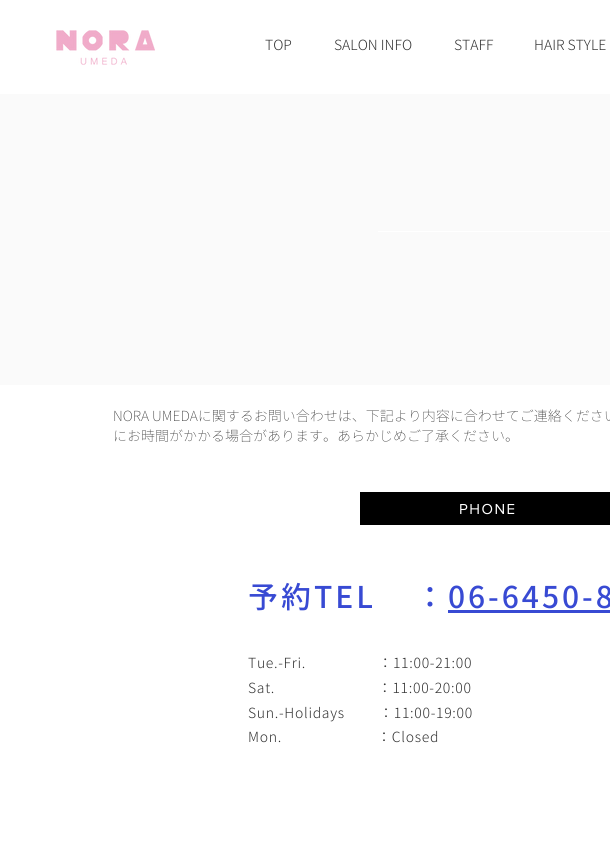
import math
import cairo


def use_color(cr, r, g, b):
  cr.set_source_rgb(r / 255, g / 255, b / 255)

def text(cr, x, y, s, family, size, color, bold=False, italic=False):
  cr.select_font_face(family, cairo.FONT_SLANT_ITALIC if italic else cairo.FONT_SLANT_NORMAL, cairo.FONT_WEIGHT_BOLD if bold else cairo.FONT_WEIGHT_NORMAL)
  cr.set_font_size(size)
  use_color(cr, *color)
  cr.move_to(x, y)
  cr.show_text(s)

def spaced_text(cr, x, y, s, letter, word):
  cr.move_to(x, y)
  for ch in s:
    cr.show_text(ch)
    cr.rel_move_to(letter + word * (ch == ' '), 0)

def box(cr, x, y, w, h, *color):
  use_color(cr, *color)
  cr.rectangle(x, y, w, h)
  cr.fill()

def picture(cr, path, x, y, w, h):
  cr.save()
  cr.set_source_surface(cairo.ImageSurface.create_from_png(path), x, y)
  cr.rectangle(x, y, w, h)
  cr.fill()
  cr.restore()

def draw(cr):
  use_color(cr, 255, 255, 255)
  cr.paint()
  picture(cr, "img_01.png", 56, 30, 99, 35)
  box(cr, 0, 94, 610, 291, 250, 250, 250)
  box(cr, 378, 231, 232, 1, 255, 255, 255)
  box(cr, 360, 492, 250, 33, 0, 0, 0)
  box(cr, 448, 610, 162, 3, 56, 74, 211)
  text(cr, 265, 50, "TOP", "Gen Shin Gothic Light", 14, (51, 51, 51))
  text(cr, 334, 50, "SALON INFO", "Gen Shin Gothic Light", 14, (51, 51, 51))
  text(cr, 454, 50, "STAFF", "Gen Shin Gothic Light", 14, (51, 51, 51))
  text(cr, 534, 50, "HAIR STYLE", "Gen Shin Gothic Light", 14, (51, 51, 51))
  text(cr, 113, 421, "NORA UMEDAに関するお問い合わせは、下記より内容に合わせてご連絡ください", "Gen Shin Gothic ExtraLight", 14, (51, 51, 51))
  text(cr, 113, 441, "にお時間がかかる場合があります。あらかじめご了承ください。", "Gen Shin Gothic ExtraLight", 14, (51, 51, 51))
  cr.select_font_face("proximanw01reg")
  cr.set_font_size(15)
  use_color(cr, 255, 255, 255)
  spaced_text(cr, 459, 514, "PHONE", 1.5, 0)
  cr.select_font_face("Gen Shin Gothic Medium")
  cr.set_font_size(30)
  use_color(cr, 56, 74, 211)
  spaced_text(cr, 248, 608, "予約TEL    ：06-6450-8", 3, 0)
  cr.select_font_face("Gen Shin Gothic Light")
  cr.set_font_size(14)
  use_color(cr, 51, 51, 51)
  spaced_text(cr, 248, 668, "Tue.-Fri.                   ：11:00-21:00", 0.7, 0)
  spaced_text(cr, 248, 693, "Sat.                           ：11:00-20:00", 0.7, 0)
  spaced_text(cr, 248, 718, "Sun.-Holidays         ：11:00-19:00", 0.7, 0)
  spaced_text(cr, 248, 742, "Mon.                         ：Closed", 0.7, 0)


surface = cairo.ImageSurface(cairo.FORMAT_RGB24, 610, 867)
cr = cairo.Context(surface)
options = cairo.FontOptions()
options.set_hint_metrics(cairo.HINT_METRICS_OFF)
options.set_hint_style(cairo.HINT_STYLE_NONE)
cr.set_font_options(options)
cr.set_miter_limit(4)
draw(cr)
surface.write_to_png("out.png")
